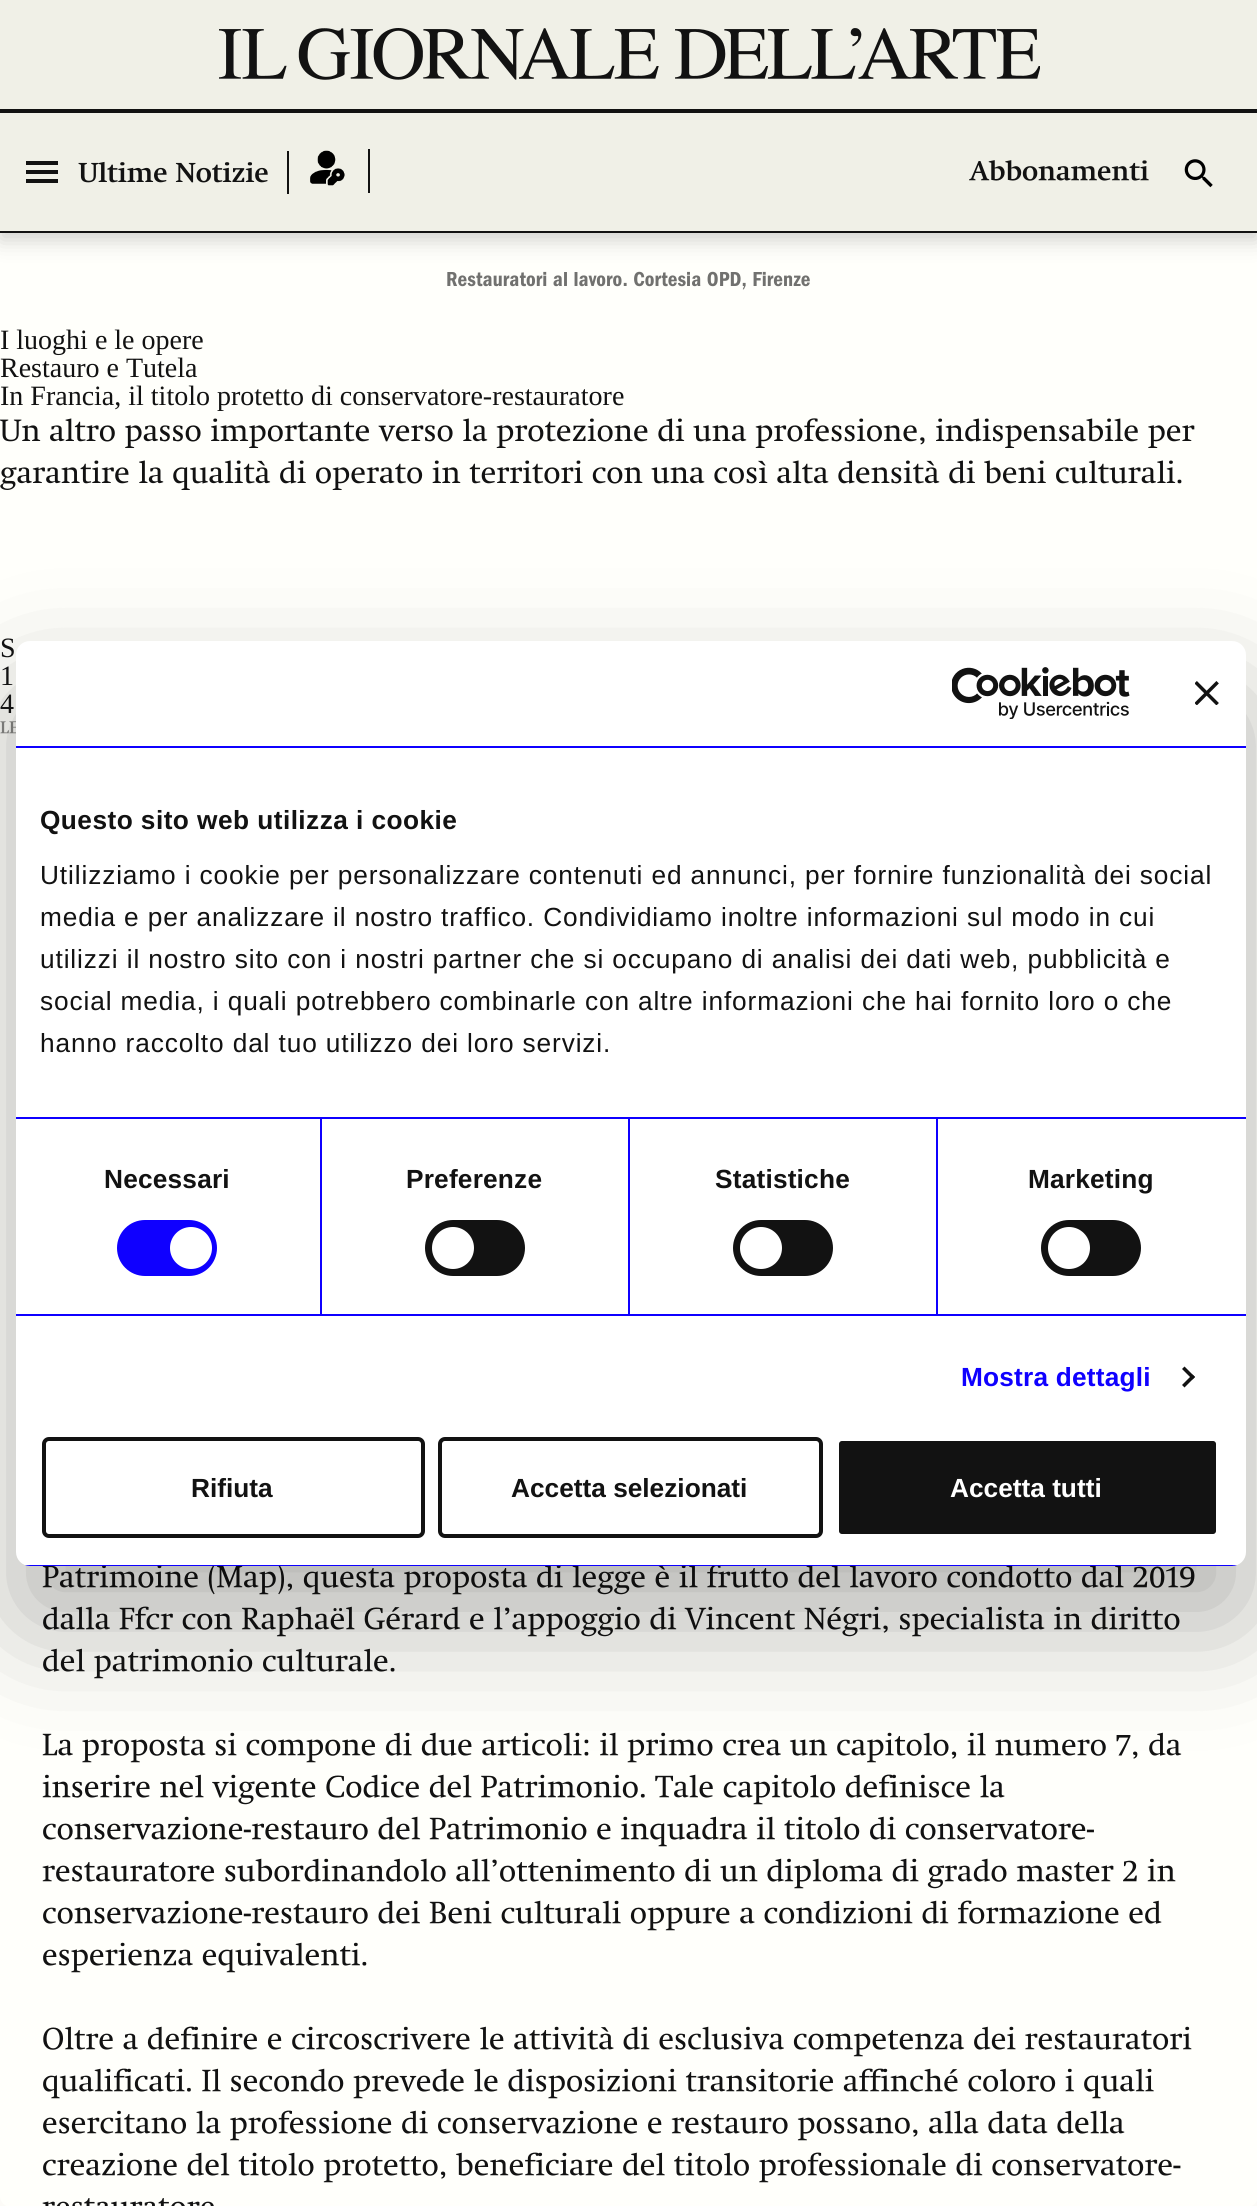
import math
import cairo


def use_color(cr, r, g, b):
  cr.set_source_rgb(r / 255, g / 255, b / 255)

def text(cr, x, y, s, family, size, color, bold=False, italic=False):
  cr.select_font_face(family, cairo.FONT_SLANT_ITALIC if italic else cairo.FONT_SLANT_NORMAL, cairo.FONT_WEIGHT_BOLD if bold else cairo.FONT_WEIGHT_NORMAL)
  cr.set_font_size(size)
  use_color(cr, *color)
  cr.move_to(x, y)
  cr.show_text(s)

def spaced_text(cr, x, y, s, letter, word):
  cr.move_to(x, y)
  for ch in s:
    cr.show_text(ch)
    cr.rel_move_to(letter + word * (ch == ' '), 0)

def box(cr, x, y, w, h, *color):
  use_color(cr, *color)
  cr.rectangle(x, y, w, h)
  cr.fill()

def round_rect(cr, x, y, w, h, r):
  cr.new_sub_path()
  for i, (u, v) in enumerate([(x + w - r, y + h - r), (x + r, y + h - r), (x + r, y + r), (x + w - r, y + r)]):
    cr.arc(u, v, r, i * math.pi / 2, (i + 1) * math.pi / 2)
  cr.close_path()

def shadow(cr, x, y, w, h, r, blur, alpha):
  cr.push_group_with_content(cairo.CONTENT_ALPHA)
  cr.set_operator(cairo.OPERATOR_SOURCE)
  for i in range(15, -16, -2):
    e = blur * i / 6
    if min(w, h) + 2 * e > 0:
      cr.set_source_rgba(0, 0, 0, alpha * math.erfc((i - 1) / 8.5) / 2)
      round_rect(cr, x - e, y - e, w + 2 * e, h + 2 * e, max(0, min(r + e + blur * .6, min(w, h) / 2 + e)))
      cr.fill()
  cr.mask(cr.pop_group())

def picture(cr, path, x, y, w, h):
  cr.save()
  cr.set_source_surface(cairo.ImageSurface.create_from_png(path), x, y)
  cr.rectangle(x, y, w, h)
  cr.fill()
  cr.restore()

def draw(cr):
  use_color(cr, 252, 251, 247)
  cr.paint()
  use_color(cr, 255, 255, 251)
  round_rect(cr, 0, 0, 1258, 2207, 11)
  cr.fill()
  use_color(cr, 18, 18, 18)
  shadow(cr, 0, 7, 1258, 233, 0, 10.5, 0.2)
  box(cr, 0, 0, 1257, 231, 240, 240, 231)
  box(cr, 0, 231, 1257, 2, 18, 18, 18)
  box(cr, 0, 109, 1257, 4, 18, 18, 18)
  picture(cr, "img_01.png", 219, 28, 821, 52)
  box(cr, 26, 161, 32, 4, 18, 18, 18)
  box(cr, 26, 170, 32, 4, 18, 18, 18)
  box(cr, 26, 179, 32, 4, 18, 18, 18)
  picture(cr, "img_02.png", 78, 161, 190, 22)
  box(cr, 368, 149, 2, 44, 18, 18, 18)
  box(cr, 287, 151, 2, 43, 18, 18, 18)
  picture(cr, "img_03.png", 310, 150, 35, 36)
  picture(cr, "img_04.png", 969, 160, 180, 21)
  picture(cr, "img_05.png", 1184, 159, 29, 29)
  picture(cr, "img_06.png", 0, 418, 1195, 30)
  picture(cr, "img_07.png", 0, 460, 1182, 30)
  picture(cr, "img_08.png", 0, 721, 16, 13)
  picture(cr, "img_09.png", 42, 1566, 1153, 29)
  picture(cr, "img_10.png", 43, 1606, 1137, 31)
  picture(cr, "img_11.png", 43, 1648, 352, 31)
  picture(cr, "img_12.png", 42, 1732, 1140, 31)
  picture(cr, "img_13.png", 42, 1774, 963, 31)
  picture(cr, "img_14.png", 43, 1816, 1051, 31)
  picture(cr, "img_15.png", 42, 1858, 1134, 31)
  picture(cr, "img_16.png", 43, 1900, 1119, 31)
  picture(cr, "img_17.png", 43, 1942, 324, 31)
  picture(cr, "img_18.png", 43, 2026, 1149, 31)
  picture(cr, "img_19.png", 43, 2068, 1111, 31)
  picture(cr, "img_20.png", 43, 2110, 1082, 31)
  picture(cr, "img_21.png", 43, 2152, 1138, 31)
  picture(cr, "img_22.png", 42, 2198, 172, 8)
  use_color(cr, 0, 0, 0)
  shadow(cr, 16, 697, 1230, 925, 14, 59.5, 0.3)
  use_color(cr, 255, 255, 255)
  round_rect(cr, 16, 641, 1230, 925, 14)
  cr.fill()
  box(cr, 16, 746, 1230, 2, 15, 0, 255)
  picture(cr, "img_23.png", 952, 667, 178, 52)
  picture(cr, "img_24.png", 1195, 681, 24, 24)
  box(cr, 320, 1118, 2, 196, 15, 0, 255)
  box(cr, 628, 1118, 2, 196, 15, 0, 255)
  box(cr, 936, 1118, 2, 196, 15, 0, 255)
  box(cr, 16, 1117, 1230, 2, 15, 0, 255)
  box(cr, 16, 1314, 1230, 2, 15, 0, 255)
  round_rect(cr, 117, 1220, 100, 56, 28)
  cr.fill()
  use_color(cr, 255, 255, 255)
  cr.arc(191, 1248, 21, 0, 2 * math.pi)
  cr.fill()
  use_color(cr, 18, 18, 18)
  round_rect(cr, 425, 1220, 100, 56, 28)
  cr.fill()
  use_color(cr, 255, 255, 255)
  cr.arc(453, 1248, 21, 0, 2 * math.pi)
  cr.fill()
  use_color(cr, 18, 18, 18)
  round_rect(cr, 733, 1220, 100, 56, 28)
  cr.fill()
  use_color(cr, 255, 255, 255)
  cr.arc(761, 1248, 21, 0, 2 * math.pi)
  cr.fill()
  use_color(cr, 18, 18, 18)
  round_rect(cr, 1041, 1220, 100, 56, 28)
  cr.fill()
  use_color(cr, 255, 255, 255)
  cr.arc(1069, 1248, 21, 0, 2 * math.pi)
  cr.fill()
  use_color(cr, 18, 18, 18)
  cr.new_path()
  cr.move_to(1184.5, 1366.5)
  cr.line_to(1195, 1377)
  cr.line_to(1192.5, 1379.5)
  cr.line_to(1182, 1369)
  cr.close_path()
  cr.fill()
  cr.new_path()
  cr.move_to(1192.5, 1374.5)
  cr.line_to(1195, 1377)
  cr.line_to(1184.5, 1387.5)
  cr.line_to(1182, 1385)
  cr.close_path()
  cr.fill()
  cr.save()
  round_rect(cr, 16, 641, 1230, 925, 14)
  cr.clip()
  box(cr, 25, 1565, 1212, 1, 15, 0, 255)
  cr.restore()
  round_rect(cr, 44, 1439, 379, 97, 5)
  cr.set_line_width(4)
  cr.stroke()
  round_rect(cr, 440, 1439, 381, 97, 5)
  cr.stroke()
  round_rect(cr, 837, 1439, 381, 97, 5)
  cr.fill_preserve()
  use_color(cr, 255, 255, 255)
  cr.stroke()
  cr.select_font_face("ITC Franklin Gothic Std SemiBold")
  cr.set_font_size(21)
  use_color(cr, 113, 113, 111)
  spaced_text(cr, 446, 286, "Restauratori al lavoro. Cortesia OPD, Firenze", 0.1, 0)
  text(cr, 0, 349, "I luoghi e le opere", "Liberation Serif", 28, (18, 18, 18))
  text(cr, 0, 377, "Restauro e Tutela", "Liberation Serif", 28, (18, 18, 18))
  text(cr, 0, 405, "In Francia, il titolo protetto di conservatore-restauratore", "Liberation Serif", 28, (18, 18, 18))
  text(cr, 0, 657, "S", "Liberation Serif", 28, (18, 18, 18))
  text(cr, 0, 685, "1", "Liberation Serif", 28, (18, 18, 18))
  text(cr, 0, 713, "4", "Liberation Serif", 28, (18, 18, 18))
  cr.select_font_face("Liberation Sans", cairo.FONT_SLANT_NORMAL, cairo.FONT_WEIGHT_BOLD)
  cr.set_font_size(26.25)
  spaced_text(cr, 40, 829, "Questo sito web utilizza i cookie", 0.45, 0)
  cr.select_font_face("Liberation Sans")
  spaced_text(cr, 40, 884, "Utilizziamo i cookie per personalizzare contenuti ed annunci, per fornire funzionalità dei social", 0.88, 0)
  spaced_text(cr, 40, 926, "media e per analizzare il nostro traffico. Condividiamo inoltre informazioni sul modo in cui", 0.88, 0)
  spaced_text(cr, 40, 968, "utilizzi il nostro sito con i nostri partner che si occupano di analisi dei dati web, pubblicità e", 0.88, 0)
  spaced_text(cr, 40, 1010, "social media, i quali potrebbero combinarle con altre informazioni che hai fornito loro o che", 0.88, 0)
  spaced_text(cr, 40, 1052, "hanno raccolto dal tuo utilizzo dei loro servizi.", 0.88, 0)
  cr.select_font_face("Liberation Sans", cairo.FONT_SLANT_NORMAL, cairo.FONT_WEIGHT_BOLD)
  spaced_text(cr, 104, 1188, "Necessari", 0.2, 0)
  spaced_text(cr, 406, 1188, "Preferenze", 0.2, 0)
  spaced_text(cr, 715, 1188, "Statistiche", 0.2, 0)
  spaced_text(cr, 1028, 1188, "Marketing", 0.2, 0)
  use_color(cr, 15, 0, 255)
  spaced_text(cr, 961, 1386, "Mostra dettagli", 0.2, 0)
  text(cr, 191, 1497, "Rifiuta", "Liberation Sans", 26.25, (18, 18, 18), bold=True)
  text(cr, 511, 1497, "Accetta selezionati", "Liberation Sans", 26.25, (18, 18, 18), bold=True)
  text(cr, 950, 1497, "Accetta tutti", "Liberation Sans", 26.25, (255, 255, 255), bold=True)


surface = cairo.ImageSurface(cairo.FORMAT_RGB24, 1257, 2206)
cr = cairo.Context(surface)
options = cairo.FontOptions()
options.set_hint_metrics(cairo.HINT_METRICS_OFF)
options.set_hint_style(cairo.HINT_STYLE_NONE)
cr.set_font_options(options)
cr.set_miter_limit(4)
draw(cr)
surface.write_to_png("out.png")
